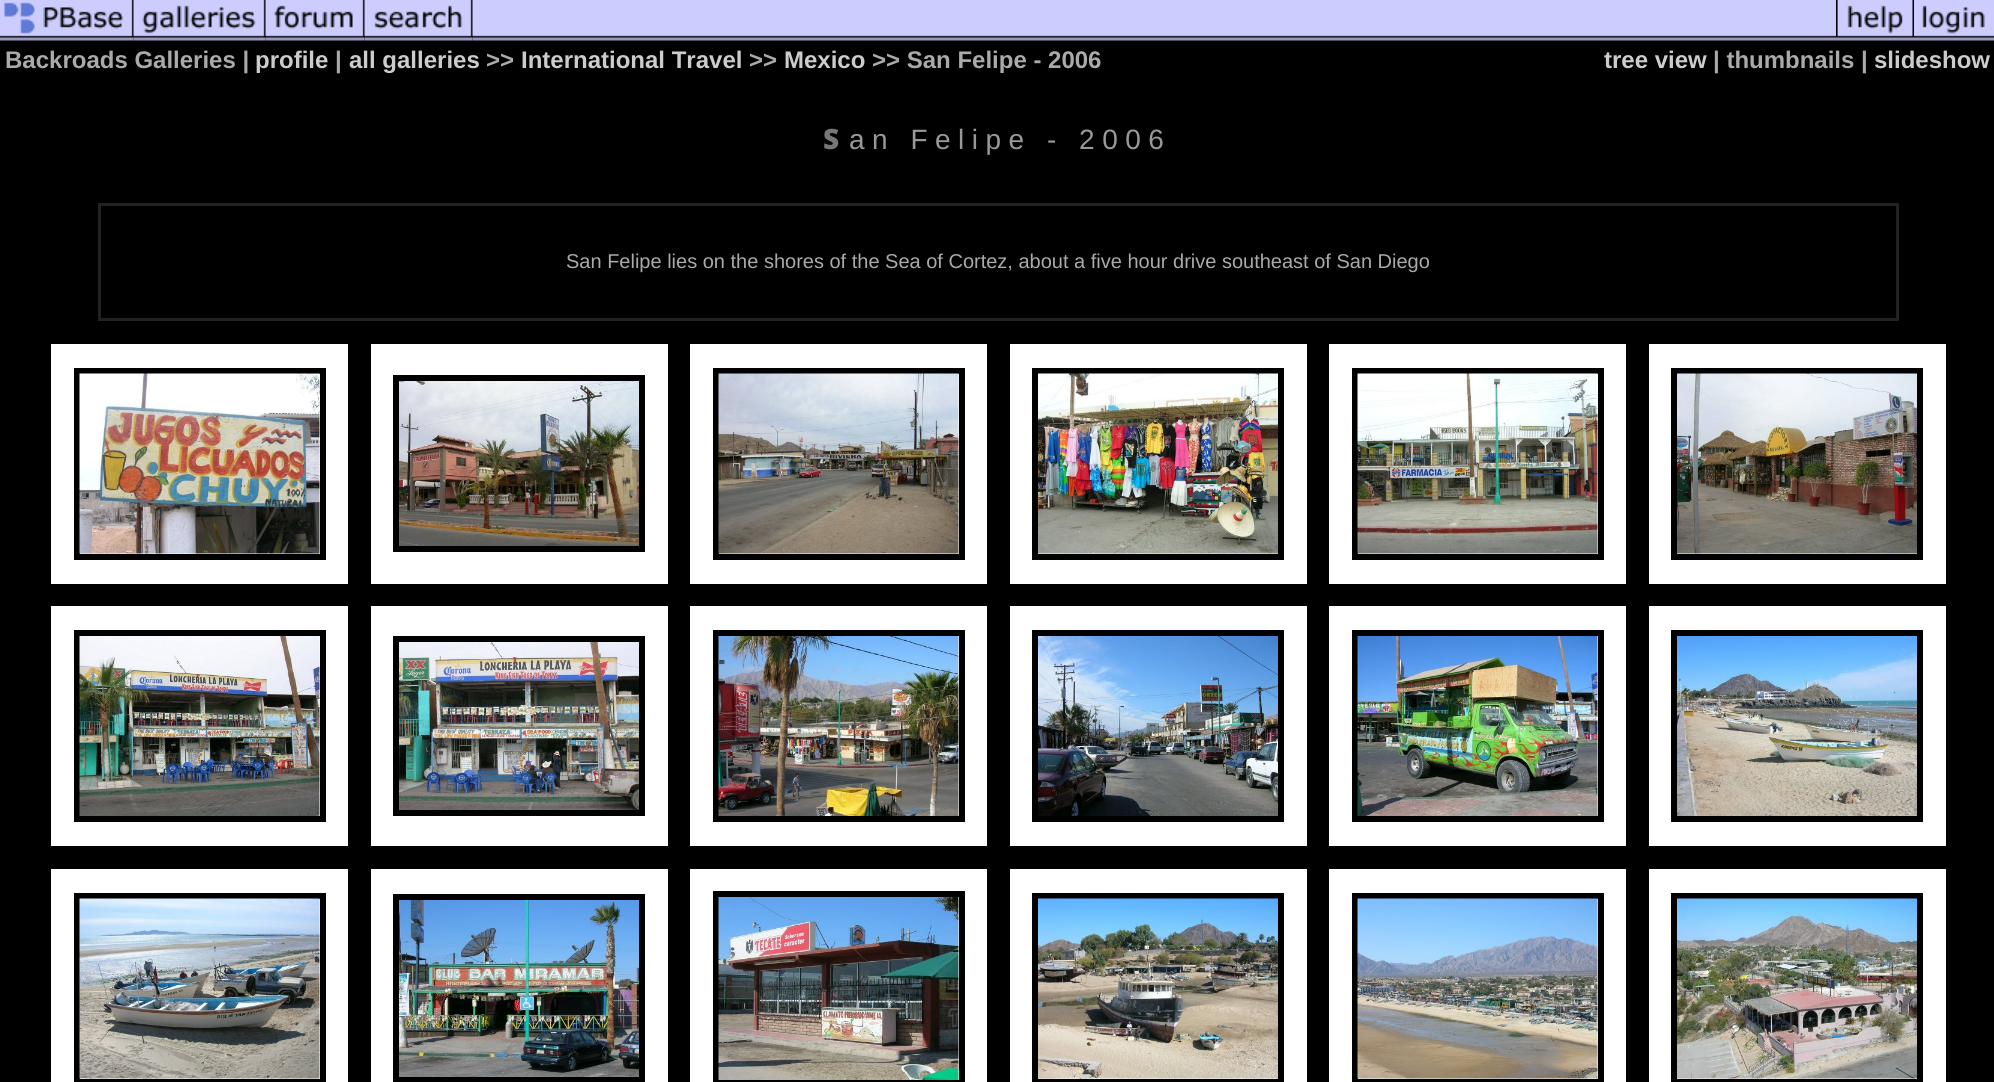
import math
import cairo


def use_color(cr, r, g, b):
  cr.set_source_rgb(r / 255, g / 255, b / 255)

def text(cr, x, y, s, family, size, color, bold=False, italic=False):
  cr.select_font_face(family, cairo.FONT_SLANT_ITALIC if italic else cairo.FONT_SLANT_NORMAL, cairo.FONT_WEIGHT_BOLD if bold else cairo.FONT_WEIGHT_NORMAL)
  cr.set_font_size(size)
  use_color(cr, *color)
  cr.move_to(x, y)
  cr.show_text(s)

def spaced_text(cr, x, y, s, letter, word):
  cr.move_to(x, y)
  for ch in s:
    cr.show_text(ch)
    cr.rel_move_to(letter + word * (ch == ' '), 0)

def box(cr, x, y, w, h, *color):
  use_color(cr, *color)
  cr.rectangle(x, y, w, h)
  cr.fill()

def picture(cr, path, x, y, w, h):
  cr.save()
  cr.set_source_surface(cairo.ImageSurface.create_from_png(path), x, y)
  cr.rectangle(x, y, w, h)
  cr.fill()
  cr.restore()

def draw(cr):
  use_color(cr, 0, 0, 0)
  cr.paint()
  picture(cr, "img_01.png", 0, 0, 134, 41)
  picture(cr, "img_02.png", 133, 0, 133, 41)
  picture(cr, "img_03.png", 265, 0, 100, 41)
  picture(cr, "img_04.png", 364, 0, 109, 41)
  picture(cr, "img_05.png", 472, 0, 1364, 41)
  picture(cr, "img_06.png", 1836, 0, 78, 41)
  picture(cr, "img_07.png", 1914, 0, 80, 41)
  cr.rectangle(99.5, 204.5, 1798, 115)
  use_color(cr, 34, 34, 34)
  cr.set_line_width(3)
  cr.stroke()
  box(cr, 51, 344, 297, 240, 255, 255, 255)
  cr.rectangle(77, 371, 246, 186)
  use_color(cr, 0, 0, 0)
  cr.set_line_width(6)
  cr.stroke()
  picture(cr, "img_08.png", 79, 373, 241, 181)
  box(cr, 371, 344, 297, 240, 255, 255, 255)
  cr.rectangle(396, 378, 246, 171)
  use_color(cr, 0, 0, 0)
  cr.stroke()
  picture(cr, "img_09.png", 399, 381, 240, 165)
  box(cr, 690, 344, 297, 240, 255, 255, 255)
  cr.rectangle(716, 371, 246, 186)
  use_color(cr, 0, 0, 0)
  cr.stroke()
  picture(cr, "img_10.png", 718, 373, 241, 181)
  box(cr, 1010, 344, 297, 240, 255, 255, 255)
  cr.rectangle(1035, 371, 246, 186)
  use_color(cr, 0, 0, 0)
  cr.stroke()
  picture(cr, "img_11.png", 1038, 373, 240, 181)
  box(cr, 1329, 344, 297, 240, 255, 255, 255)
  cr.rectangle(1355, 371, 246, 186)
  use_color(cr, 0, 0, 0)
  cr.stroke()
  picture(cr, "img_12.png", 1357, 373, 241, 181)
  box(cr, 1649, 344, 297, 240, 255, 255, 255)
  cr.rectangle(1674, 371, 246, 186)
  use_color(cr, 0, 0, 0)
  cr.stroke()
  picture(cr, "img_13.png", 1677, 373, 240, 181)
  box(cr, 51, 606, 297, 240, 255, 255, 255)
  cr.rectangle(77, 633, 246, 186)
  use_color(cr, 0, 0, 0)
  cr.stroke()
  picture(cr, "img_14.png", 79, 636, 241, 180)
  box(cr, 371, 606, 297, 240, 255, 255, 255)
  cr.rectangle(396, 639, 246, 174)
  use_color(cr, 0, 0, 0)
  cr.stroke()
  picture(cr, "img_15.png", 399, 642, 240, 168)
  box(cr, 690, 606, 297, 240, 255, 255, 255)
  cr.rectangle(716, 633, 246, 186)
  use_color(cr, 0, 0, 0)
  cr.stroke()
  picture(cr, "img_16.png", 718, 636, 241, 180)
  box(cr, 1010, 606, 297, 240, 255, 255, 255)
  cr.rectangle(1035, 633, 246, 186)
  use_color(cr, 0, 0, 0)
  cr.stroke()
  picture(cr, "img_17.png", 1038, 636, 240, 180)
  box(cr, 1329, 606, 297, 240, 255, 255, 255)
  cr.rectangle(1355, 633, 246, 186)
  use_color(cr, 0, 0, 0)
  cr.stroke()
  picture(cr, "img_18.png", 1357, 636, 241, 180)
  box(cr, 1649, 606, 297, 240, 255, 255, 255)
  cr.rectangle(1674, 633, 246, 186)
  use_color(cr, 0, 0, 0)
  cr.stroke()
  picture(cr, "img_19.png", 1677, 636, 240, 180)
  box(cr, 51, 869, 297, 213, 255, 255, 255)
  cr.rectangle(77, 896, 246, 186)
  use_color(cr, 0, 0, 0)
  cr.stroke()
  picture(cr, "img_20.png", 79, 898, 241, 181)
  box(cr, 371, 869, 297, 213, 255, 255, 255)
  cr.rectangle(396, 897, 246, 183)
  use_color(cr, 0, 0, 0)
  cr.stroke()
  picture(cr, "img_21.png", 399, 900, 240, 177)
  box(cr, 690, 869, 297, 213, 255, 255, 255)
  cr.rectangle(716, 894, 246, 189)
  use_color(cr, 0, 0, 0)
  cr.stroke()
  picture(cr, "img_22.png", 718, 897, 241, 183)
  box(cr, 1010, 869, 297, 213, 255, 255, 255)
  cr.rectangle(1035, 896, 246, 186)
  use_color(cr, 0, 0, 0)
  cr.stroke()
  picture(cr, "img_23.png", 1038, 898, 240, 181)
  box(cr, 1329, 869, 297, 213, 255, 255, 255)
  cr.rectangle(1355, 896, 246, 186)
  use_color(cr, 0, 0, 0)
  cr.stroke()
  picture(cr, "img_24.png", 1357, 898, 241, 181)
  box(cr, 1649, 869, 297, 213, 255, 255, 255)
  cr.rectangle(1674, 896, 246, 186)
  use_color(cr, 0, 0, 0)
  cr.stroke()
  picture(cr, "img_25.png", 1677, 898, 240, 181)
  text(cr, 5, 68, "Backroads Galleries |", "Liberation Sans", 24, (170, 170, 170), bold=True)
  text(cr, 255, 68, "profile", "Liberation Sans", 24, (204, 204, 204), bold=True)
  text(cr, 335, 68, "|", "Liberation Sans", 24, (170, 170, 170), bold=True)
  text(cr, 349, 68, "all galleries", "Liberation Sans", 24, (204, 204, 204), bold=True)
  text(cr, 486, 68, ">>", "Liberation Sans", 24, (170, 170, 170), bold=True)
  text(cr, 521, 68, "International Travel", "Liberation Sans", 24, (204, 204, 204), bold=True)
  text(cr, 749, 68, ">>", "Liberation Sans", 24, (170, 170, 170), bold=True)
  text(cr, 784, 68, "Mexico", "Liberation Sans", 24, (204, 204, 204), bold=True)
  text(cr, 872, 68, ">> San Felipe - 2006", "Liberation Sans", 24, (170, 170, 170), bold=True)
  text(cr, 1604, 68, "tree view", "Liberation Sans", 24, (204, 204, 204), bold=True)
  text(cr, 1713, 68, "| thumbnails |", "Liberation Sans", 24, (170, 170, 170), bold=True)
  text(cr, 1874, 68, "slideshow", "Liberation Sans", 24, (204, 204, 204), bold=True)
  cr.select_font_face("Noto Sans Black")
  cr.set_font_size(28)
  use_color(cr, 119, 119, 119)
  spaced_text(cr, 823, 149, "S", 7.5, 0)
  cr.select_font_face("Liberation Sans")
  use_color(cr, 153, 153, 153)
  spaced_text(cr, 849, 149, "an Felipe - 2006", 7.5, 0)
  text(cr, 566, 268, "San Felipe lies on the shores of the Sea of Cortez, about a five hour drive southeast of San Diego", "Liberation Sans", 20, (170, 170, 170))


surface = cairo.ImageSurface(cairo.FORMAT_RGB24, 1994, 1082)
cr = cairo.Context(surface)
options = cairo.FontOptions()
options.set_hint_metrics(cairo.HINT_METRICS_OFF)
options.set_hint_style(cairo.HINT_STYLE_NONE)
cr.set_font_options(options)
cr.set_miter_limit(4)
draw(cr)
surface.write_to_png("out.png")
